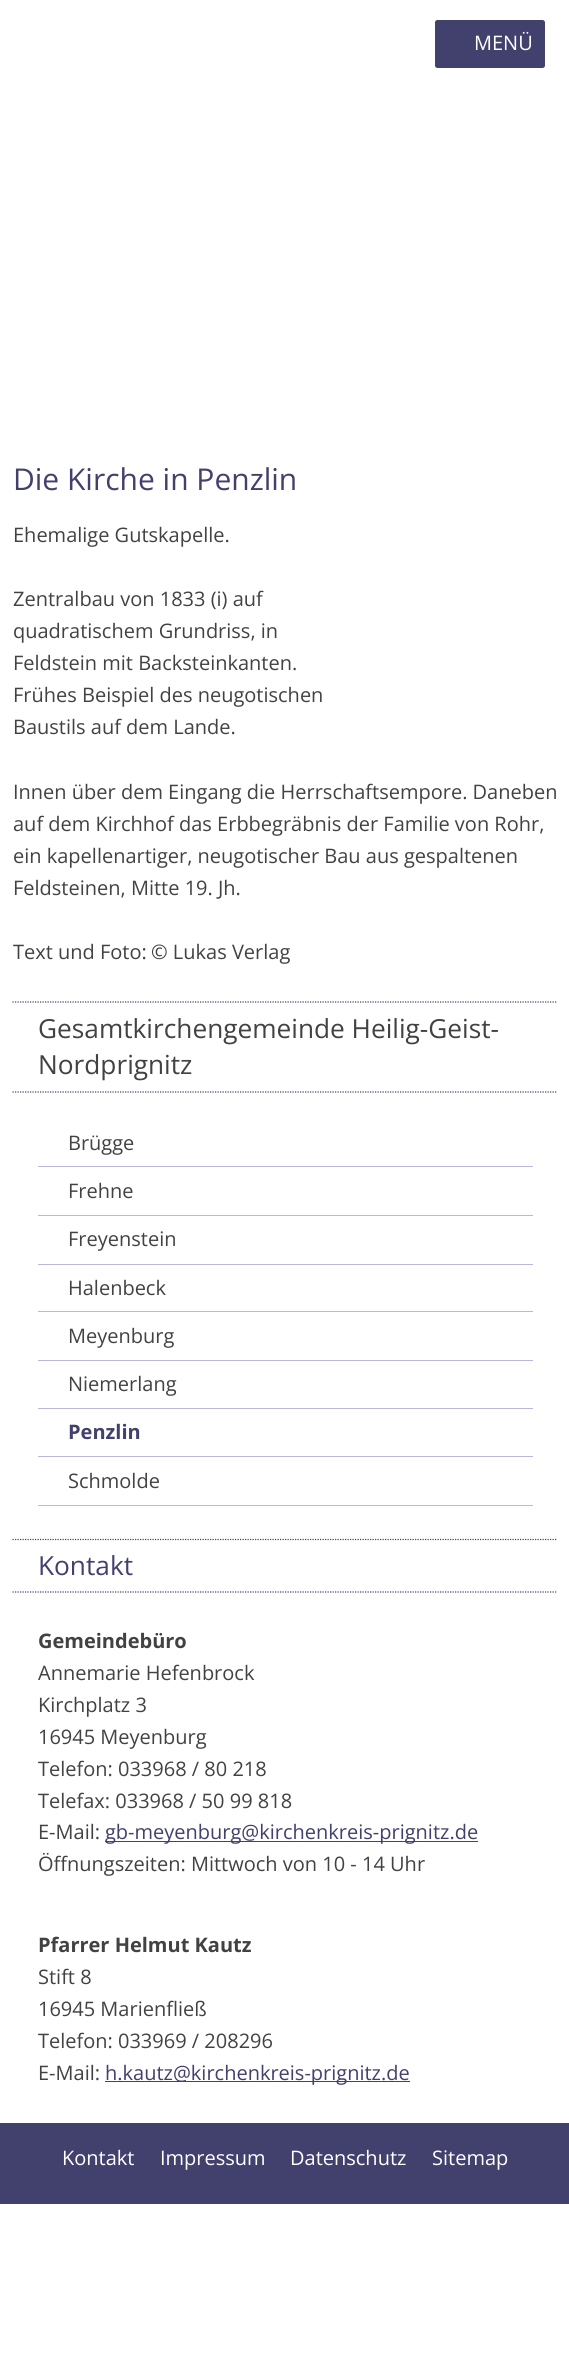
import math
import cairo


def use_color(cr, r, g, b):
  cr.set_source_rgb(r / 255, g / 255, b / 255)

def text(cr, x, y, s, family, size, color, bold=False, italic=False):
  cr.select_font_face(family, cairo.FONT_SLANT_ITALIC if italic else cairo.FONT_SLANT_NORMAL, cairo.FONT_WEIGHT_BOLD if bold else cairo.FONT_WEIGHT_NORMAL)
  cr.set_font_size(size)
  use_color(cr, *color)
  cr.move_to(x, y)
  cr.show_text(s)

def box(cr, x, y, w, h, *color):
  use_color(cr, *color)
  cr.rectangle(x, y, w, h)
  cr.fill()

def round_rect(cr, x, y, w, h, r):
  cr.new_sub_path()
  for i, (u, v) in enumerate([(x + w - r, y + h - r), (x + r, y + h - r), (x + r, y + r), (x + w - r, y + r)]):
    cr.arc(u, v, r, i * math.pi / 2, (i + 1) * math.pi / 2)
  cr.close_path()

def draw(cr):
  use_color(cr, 255, 255, 255)
  cr.paint()
  use_color(cr, 66, 64, 109)
  round_rect(cr, 435, 20, 110, 48, 2.5)
  cr.fill()
  cr.new_path()
  cr.move_to(12.5, 1002)
  cr.line_to(557.5, 1002)
  cr.set_line_width(1.2)
  cr.set_dash([1.25, 1.25])
  cr.stroke()
  cr.new_path()
  cr.move_to(12.5, 1092)
  cr.line_to(557.5, 1092)
  cr.stroke()
  box(cr, 38, 1505, 495, 1, 184, 184, 217)
  box(cr, 38, 1166, 495, 1, 184, 184, 217)
  box(cr, 38, 1215, 495, 1, 184, 184, 217)
  box(cr, 38, 1264, 495, 1, 184, 184, 217)
  box(cr, 38, 1311, 495, 1, 184, 184, 217)
  box(cr, 38, 1360, 495, 1, 184, 184, 217)
  box(cr, 38, 1408, 495, 1, 184, 184, 217)
  box(cr, 38, 1456, 495, 1, 184, 184, 217)
  cr.new_path()
  cr.move_to(12.5, 1539.5)
  cr.line_to(557.5, 1539.5)
  use_color(cr, 66, 64, 109)
  cr.stroke()
  cr.new_path()
  cr.move_to(12.5, 1592)
  cr.line_to(557.5, 1592)
  cr.stroke()
  box(cr, 105, 1841, 373, 1, 66, 64, 109)
  box(cr, 105, 2081, 305, 1, 66, 64, 109)
  box(cr, 0, 2123, 569, 81, 66, 64, 109)
  text(cr, 474, 50, "MENÜ", "Open Sans", 20, (255, 255, 255))
  text(cr, 13, 490, "Die Kirche in Penzlin", "Open Sans", 30, (66, 64, 109))
  text(cr, 13, 542, "Ehemalige Gutskapelle.", "Open Sans", 20, (66, 66, 66))
  text(cr, 13, 606, "Zentralbau von 1833 (i) auf", "Open Sans", 20, (66, 66, 66))
  text(cr, 13, 638, "quadratischem Grundriss, in", "Open Sans", 20, (66, 66, 66))
  text(cr, 13, 670, "Feldstein mit Backsteinkanten.", "Open Sans", 20, (66, 66, 66))
  text(cr, 13, 702, "Frühes Beispiel des neugotischen", "Open Sans", 20, (66, 66, 66))
  text(cr, 13, 734, "Baustils auf dem Lande.", "Open Sans", 20, (66, 66, 66))
  text(cr, 13, 799, "Innen über dem Eingang die Herrschaftsempore. Daneben", "Open Sans", 20, (66, 66, 66))
  text(cr, 13, 831, "auf dem Kirchhof das Erbbegräbnis der Familie von Rohr,", "Open Sans", 20, (66, 66, 66))
  text(cr, 13, 863, "ein kapellenartiger, neugotischer Bau aus gespaltenen", "Open Sans", 20, (66, 66, 66))
  text(cr, 13, 895, "Feldsteinen, Mitte 19. Jh.", "Open Sans", 20, (66, 66, 66))
  cr.save()
  cr.rectangle(13, 458, 545, 511)
  cr.clip()
  text(cr, 13, 959, "Text und Foto:", "Open Sans", 20, (66, 66, 66))
  cr.restore()
  text(cr, 151, 959, "© Lukas Verlag", "Open Sans", 20, (66, 66, 66))
  text(cr, 38, 1038, "Gesamtkirchengemeinde Heilig-Geist-", "Open Sans", 26.25, (66, 66, 66))
  text(cr, 38, 1074, "Nordprignitz", "Open Sans", 26.25, (66, 66, 66))
  text(cr, 68, 1150, "Brügge", "Open Sans", 20, (66, 66, 66))
  text(cr, 68, 1198, "Frehne", "Open Sans", 20, (66, 66, 66))
  text(cr, 68, 1246, "Freyenstein", "Open Sans", 20, (66, 66, 66))
  text(cr, 68, 1295, "Halenbeck", "Open Sans", 20, (66, 66, 66))
  text(cr, 68, 1343, "Meyenburg", "Open Sans", 20, (66, 66, 66))
  text(cr, 68, 1391, "Niemerlang", "Open Sans", 20, (66, 66, 66))
  text(cr, 68, 1439, "Penzlin", "Open Sans", 20, (66, 64, 109), bold=True)
  text(cr, 68, 1488, "Schmolde", "Open Sans", 20, (66, 66, 66))
  text(cr, 38, 1575, "Kontakt", "Open Sans", 26.25, (66, 64, 109))
  text(cr, 38, 1648, "Gemeindebüro", "Open Sans", 20, (66, 66, 66), bold=True)
  text(cr, 38, 1680, "Annemarie Hefenbrock", "Open Sans", 20, (66, 66, 66))
  text(cr, 38, 1712, "Kirchplatz 3", "Open Sans", 20, (66, 66, 66))
  text(cr, 38, 1744, "16945 Meyenburg", "Open Sans", 20, (66, 66, 66))
  text(cr, 38, 1776, "Telefon: 033968 / 80 218", "Open Sans", 20, (66, 66, 66))
  text(cr, 38, 1808, "Telefax: 033968 / 50 99 818", "Open Sans", 20, (66, 66, 66))
  text(cr, 38, 1839, "E-Mail:", "Open Sans", 20, (66, 66, 66))
  text(cr, 105, 1839, "gb-meyenburg@kirchenkreis-prignitz.de", "Open Sans", 20, (66, 64, 109))
  text(cr, 38, 1871, "Öffnungszeiten: Mittwoch von 10 - 14 Uhr", "Open Sans", 20, (66, 66, 66))
  text(cr, 38, 1952, "Pfarrer Helmut Kautz", "Open Sans", 20, (66, 66, 66), bold=True)
  text(cr, 38, 1984, "Stift 8", "Open Sans", 20, (66, 66, 66))
  text(cr, 38, 2016, "16945 Marienfließ", "Open Sans", 20, (66, 66, 66))
  text(cr, 38, 2048, "Telefon: 033969 / 208296", "Open Sans", 20, (66, 66, 66))
  text(cr, 38, 2080, "E-Mail:", "Open Sans", 20, (66, 66, 66))
  text(cr, 105, 2080, "h.kautz@kirchenkreis-prignitz.de", "Open Sans", 20, (66, 64, 109))
  text(cr, 62, 2165, "Kontakt", "Open Sans", 20, (255, 255, 255))
  text(cr, 160, 2165, "Impressum", "Open Sans", 20, (255, 255, 255))
  text(cr, 290, 2165, "Datenschutz", "Open Sans", 20, (255, 255, 255))
  text(cr, 432, 2165, "Sitemap", "Open Sans", 20, (255, 255, 255))


surface = cairo.ImageSurface(cairo.FORMAT_RGB24, 569, 2354)
cr = cairo.Context(surface)
options = cairo.FontOptions()
options.set_hint_metrics(cairo.HINT_METRICS_OFF)
options.set_hint_style(cairo.HINT_STYLE_NONE)
cr.set_font_options(options)
cr.set_miter_limit(4)
draw(cr)
surface.write_to_png("out.png")
